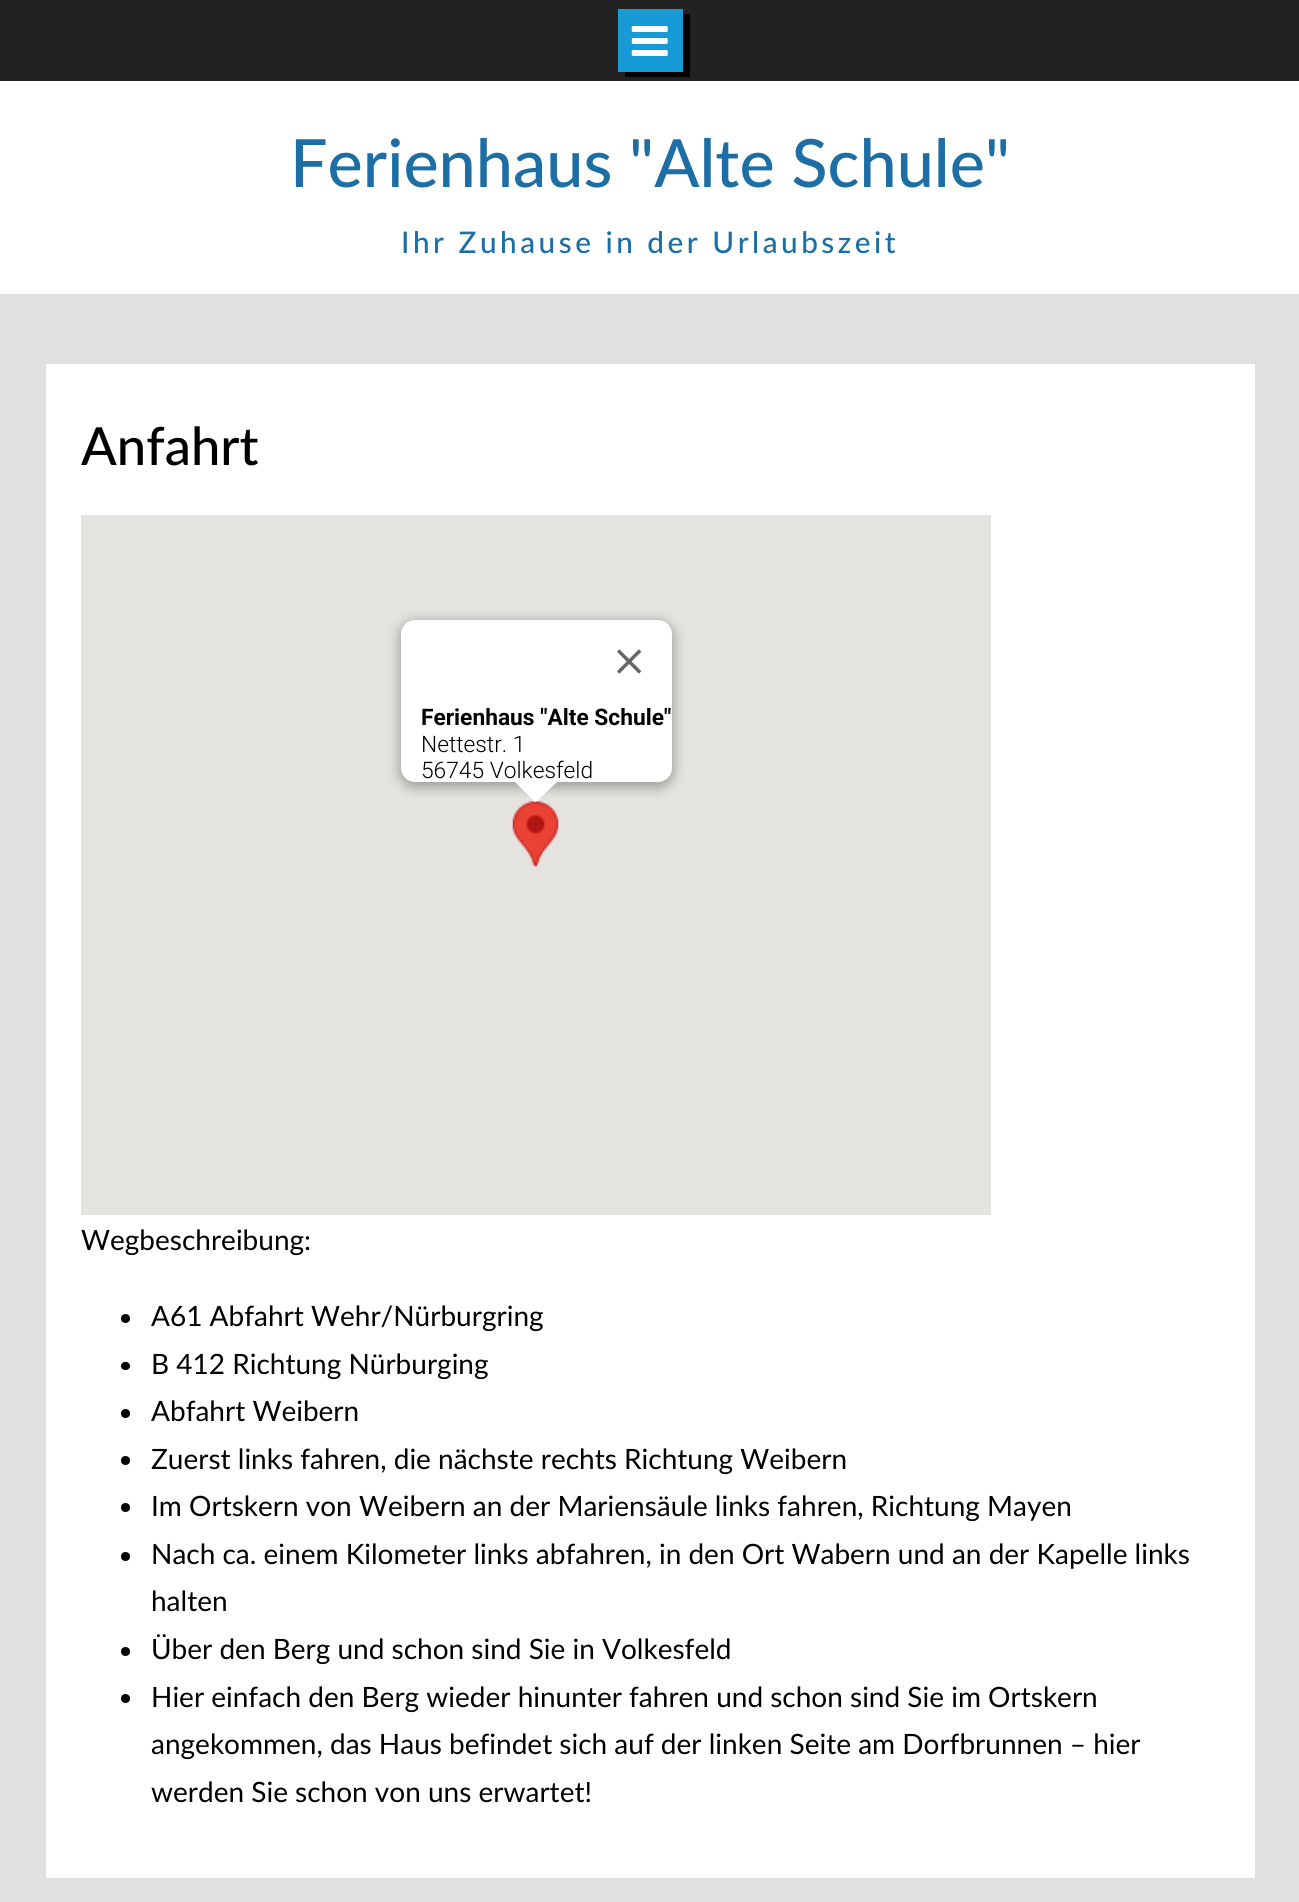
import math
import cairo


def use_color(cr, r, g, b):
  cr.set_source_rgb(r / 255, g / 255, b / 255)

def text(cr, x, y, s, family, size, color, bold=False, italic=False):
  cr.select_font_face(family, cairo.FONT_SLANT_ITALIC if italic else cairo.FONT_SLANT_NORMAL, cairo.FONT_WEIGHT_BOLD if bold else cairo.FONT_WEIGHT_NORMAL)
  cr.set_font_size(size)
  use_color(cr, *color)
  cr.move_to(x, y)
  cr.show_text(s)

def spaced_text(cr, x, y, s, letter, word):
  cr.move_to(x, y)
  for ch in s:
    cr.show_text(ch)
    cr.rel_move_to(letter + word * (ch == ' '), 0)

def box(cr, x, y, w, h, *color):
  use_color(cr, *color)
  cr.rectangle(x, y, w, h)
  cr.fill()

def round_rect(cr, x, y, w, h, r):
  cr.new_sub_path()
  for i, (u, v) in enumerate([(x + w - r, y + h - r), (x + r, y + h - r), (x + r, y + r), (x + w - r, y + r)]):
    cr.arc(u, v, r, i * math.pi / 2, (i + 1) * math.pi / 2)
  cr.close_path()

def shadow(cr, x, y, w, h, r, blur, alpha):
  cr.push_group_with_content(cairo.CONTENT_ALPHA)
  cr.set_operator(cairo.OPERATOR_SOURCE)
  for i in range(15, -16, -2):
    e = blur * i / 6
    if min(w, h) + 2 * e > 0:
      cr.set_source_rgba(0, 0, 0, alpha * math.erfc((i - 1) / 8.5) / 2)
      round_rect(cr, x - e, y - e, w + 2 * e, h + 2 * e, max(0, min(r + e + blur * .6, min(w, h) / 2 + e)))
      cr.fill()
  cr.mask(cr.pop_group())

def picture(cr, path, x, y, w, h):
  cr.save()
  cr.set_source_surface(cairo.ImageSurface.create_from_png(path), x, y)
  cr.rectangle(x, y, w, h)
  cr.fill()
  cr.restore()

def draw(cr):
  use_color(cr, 224, 224, 224)
  cr.paint()
  box(cr, 0, 0, 1299, 81, 34, 34, 34)
  use_color(cr, 0, 0, 0)
  cr.new_path()
  cr.move_to(625, 72)
  cr.line_to(625, 77)
  cr.line_to(690, 77)
  cr.line_to(690, 14)
  cr.line_to(682, 14)
  cr.line_to(682, 72)
  cr.close_path()
  cr.fill()
  box(cr, 618, 9, 65, 63, 23, 155, 215)
  picture(cr, "img_01.png", 631, 26, 37, 30)
  box(cr, 0, 81, 1299, 213, 255, 255, 255)
  box(cr, 46, 364, 1209, 1514, 255, 255, 255)
  box(cr, 81, 515, 910, 700, 229, 227, 223)
  picture(cr, "img_03.png", 512, 801, 47, 66)
  use_color(cr, 0, 0, 0)
  shadow(cr, 399, 621, 275, 167, 16, 6, 0.3)
  use_color(cr, 255, 255, 255)
  round_rect(cr, 401, 620, 271, 162, 14)
  cr.fill()
  picture(cr, "img_02.png", 617, 649, 25, 25)
  cr.new_path()
  cr.move_to(515, 782)
  cr.line_to(515, 781)
  cr.line_to(558, 781)
  cr.line_to(536, 802)
  cr.line_to(535, 802)
  cr.close_path()
  cr.fill()
  use_color(cr, 0, 0, 0)
  cr.arc(125.5, 1318.5, 4.5, 0, 2 * math.pi)
  cr.fill()
  round_rect(cr, 121, 1362, 9, 8, 4)
  cr.fill()
  cr.arc(125.5, 1413.5, 4.5, 0, 2 * math.pi)
  cr.fill()
  cr.arc(125.5, 1460.5, 4.5, 0, 2 * math.pi)
  cr.fill()
  cr.arc(125.5, 1507.5, 4.5, 0, 2 * math.pi)
  cr.fill()
  cr.arc(125.5, 1556.5, 4.5, 0, 2 * math.pi)
  cr.fill()
  cr.arc(125.5, 1651.5, 4.5, 0, 2 * math.pi)
  cr.fill()
  cr.arc(125.5, 1698.5, 4.5, 0, 2 * math.pi)
  cr.fill()
  text(cr, 290, 187, "Ferienhaus \"Alte Schule\"", "Lato Medium", 66.5, (29, 110, 165))
  cr.set_font_size(29.75)
  spaced_text(cr, 401, 253, "Ihr Zuhause in der Urlaubszeit", 3.5, 0)
  text(cr, 81, 465, "Anfahrt", "Lato Medium", 52.5, (0, 0, 0))
  text(cr, 421, 725, "Ferienhaus \"Alte Schule\"", "Roboto", 22.75, (0, 0, 0), bold=True)
  text(cr, 421, 752, "Nettestr. 1", "Roboto Light", 22.75, (0, 0, 0))
  text(cr, 421, 778, "56745 Volkesfeld", "Roboto Light", 22.75, (0, 0, 0))
  text(cr, 81, 1250, "Wegbeschreibung:", "Lato", 28, (0, 0, 0))
  text(cr, 151, 1326, "A61 Abfahrt Wehr/Nürburgring", "Lato", 28, (0, 0, 0))
  text(cr, 151, 1374, "B 412 Richtung Nürburging", "Lato", 28, (0, 0, 0))
  text(cr, 151, 1421, "Abfahrt Weibern", "Lato", 28, (0, 0, 0))
  text(cr, 151, 1469, "Zuerst links fahren, die nächste rechts Richtung Weibern", "Lato", 28, (0, 0, 0))
  text(cr, 151, 1516, "Im Ortskern von Weibern an der Mariensäule links fahren, Richtung Mayen", "Lato", 28, (0, 0, 0))
  text(cr, 151, 1564, "Nach ca. einem Kilometer links abfahren, in den Ort Wabern und an der Kapelle links", "Lato", 28, (0, 0, 0))
  text(cr, 151, 1611, "halten", "Lato", 28, (0, 0, 0))
  text(cr, 151, 1659, "Über den Berg und schon sind Sie in Volkesfeld", "Lato", 28, (0, 0, 0))
  text(cr, 151, 1707, "Hier einfach den Berg wieder hinunter fahren und schon sind Sie im Ortskern", "Lato", 28, (0, 0, 0))
  text(cr, 151, 1754, "angekommen, das Haus befindet sich auf der linken Seite am Dorfbrunnen – hier", "Lato", 28, (0, 0, 0))
  text(cr, 151, 1802, "werden Sie schon von uns erwartet!", "Lato", 28, (0, 0, 0))


surface = cairo.ImageSurface(cairo.FORMAT_RGB24, 1299, 1902)
cr = cairo.Context(surface)
options = cairo.FontOptions()
options.set_hint_metrics(cairo.HINT_METRICS_OFF)
options.set_hint_style(cairo.HINT_STYLE_NONE)
cr.set_font_options(options)
cr.set_miter_limit(4)
draw(cr)
surface.write_to_png("out.png")
